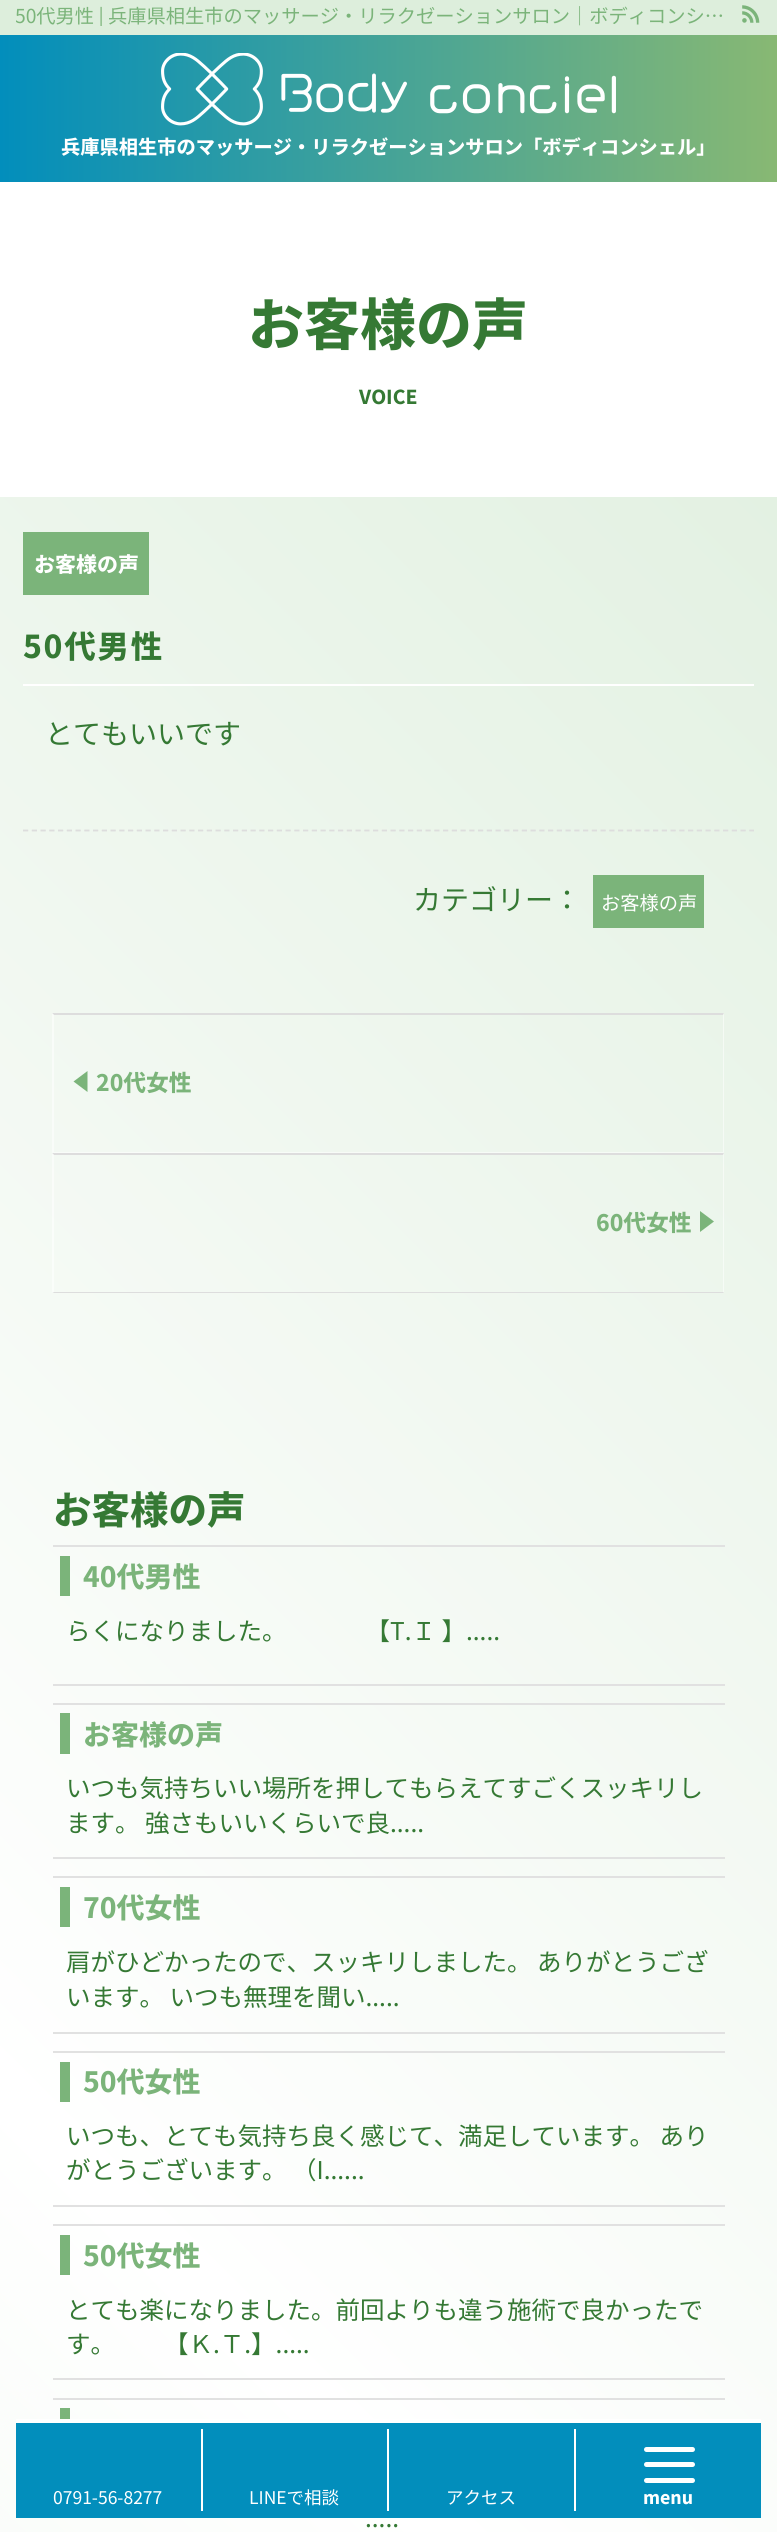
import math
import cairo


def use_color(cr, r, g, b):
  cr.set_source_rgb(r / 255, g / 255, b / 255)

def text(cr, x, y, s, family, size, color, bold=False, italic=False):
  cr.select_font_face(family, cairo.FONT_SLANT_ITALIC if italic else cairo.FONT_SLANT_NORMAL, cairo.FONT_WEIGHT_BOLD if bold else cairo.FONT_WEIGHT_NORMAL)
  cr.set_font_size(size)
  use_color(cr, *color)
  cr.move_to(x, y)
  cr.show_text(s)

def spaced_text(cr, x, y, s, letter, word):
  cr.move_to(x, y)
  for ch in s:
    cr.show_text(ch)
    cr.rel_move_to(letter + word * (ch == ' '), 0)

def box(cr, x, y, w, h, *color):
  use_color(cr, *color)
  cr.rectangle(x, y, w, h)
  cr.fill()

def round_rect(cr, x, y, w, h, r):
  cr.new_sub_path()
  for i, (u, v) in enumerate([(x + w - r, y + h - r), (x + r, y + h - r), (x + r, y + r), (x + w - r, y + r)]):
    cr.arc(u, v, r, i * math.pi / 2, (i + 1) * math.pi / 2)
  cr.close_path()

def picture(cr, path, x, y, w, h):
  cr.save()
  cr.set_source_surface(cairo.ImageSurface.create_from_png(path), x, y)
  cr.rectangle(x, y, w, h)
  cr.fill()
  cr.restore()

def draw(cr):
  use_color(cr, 255, 255, 255)
  cr.paint()
  gradient = cairo.LinearGradient(-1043, 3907, 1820, 1043)
  gradient.add_color_stop_rgba(0, 0.867, 0.933, 0.863, 1)
  gradient.add_color_stop_rgba(0.5, 1, 1, 1, 1)
  gradient.add_color_stop_rgba(1, 0.867, 0.933, 0.863, 1)
  cr.set_source(gradient)
  cr.rectangle(0, 497, 777, 2035)
  cr.fill()
  box(cr, 0, 0, 777, 35, 221, 238, 220)
  picture(cr, "img_01.png", 742, 5, 18, 18)
  gradient = cairo.LinearGradient(0, 109, 777, 108)
  gradient.add_color_stop_rgba(0, 0.008, 0.557, 0.737, 1)
  gradient.add_color_stop_rgba(1, 0.533, 0.722, 0.451, 1)
  cr.set_source(gradient)
  cr.rectangle(0, 35, 777, 147)
  cr.fill()
  picture(cr, "img_02.png", 161, 53, 455, 73)
  box(cr, 23, 532, 126, 63, 123, 180, 122)
  box(cr, 23, 684, 731, 2, 255, 255, 255)
  cr.new_path()
  cr.move_to(23, 830.5)
  cr.line_to(754, 830.5)
  use_color(cr, 221, 221, 221)
  cr.set_line_width(1.8)
  cr.set_dash([5.25, 3.5])
  cr.stroke()
  box(cr, 593, 875, 111, 53, 123, 180, 122)
  use_color(cr, 221, 221, 221)
  cr.new_path()
  cr.move_to(52, 1013)
  cr.line_to(724, 1013)
  cr.line_to(723, 1015)
  cr.line_to(54, 1015)
  cr.close_path()
  cr.fill()
  cr.set_source_rgba(1, 1, 1, 0.5)
  cr.new_path()
  cr.move_to(724, 1013)
  cr.line_to(724, 1153)
  cr.line_to(723, 1152)
  cr.line_to(723, 1015)
  cr.close_path()
  cr.fill()
  cr.new_path()
  cr.move_to(724, 1153)
  cr.line_to(52, 1153)
  cr.line_to(54, 1152)
  cr.line_to(723, 1152)
  cr.close_path()
  cr.fill()
  cr.new_path()
  cr.move_to(52, 1153)
  cr.line_to(52, 1013)
  cr.line_to(54, 1015)
  cr.line_to(54, 1152)
  cr.close_path()
  cr.fill()
  use_color(cr, 123, 180, 122)
  cr.new_path()
  cr.move_to(87.5, 1071)
  cr.line_to(87.5, 1092)
  cr.line_to(73.5, 1081.5)
  cr.close_path()
  cr.fill()
  use_color(cr, 221, 221, 221)
  cr.new_path()
  cr.move_to(52, 1153)
  cr.line_to(724, 1153)
  cr.line_to(723, 1155)
  cr.line_to(54, 1155)
  cr.close_path()
  cr.fill()
  cr.set_source_rgba(1, 1, 1, 0.5)
  cr.new_path()
  cr.move_to(724, 1153)
  cr.line_to(724, 1293)
  cr.line_to(723, 1292)
  cr.line_to(723, 1155)
  cr.close_path()
  cr.fill()
  use_color(cr, 221, 221, 221)
  cr.new_path()
  cr.move_to(724, 1293)
  cr.line_to(52, 1293)
  cr.line_to(54, 1292)
  cr.line_to(723, 1292)
  cr.close_path()
  cr.fill()
  cr.set_source_rgba(1, 1, 1, 0.5)
  cr.new_path()
  cr.move_to(52, 1293)
  cr.line_to(52, 1153)
  cr.line_to(54, 1155)
  cr.line_to(54, 1292)
  cr.close_path()
  cr.fill()
  use_color(cr, 123, 180, 122)
  cr.new_path()
  cr.move_to(700, 1232)
  cr.line_to(700, 1211)
  cr.line_to(714, 1221.5)
  cr.close_path()
  cr.fill()
  box(cr, 53, 1545, 672, 2, 225, 225, 225)
  box(cr, 53, 1684, 672, 2, 225, 225, 225)
  box(cr, 60, 1556, 10, 40, 123, 180, 122)
  box(cr, 53, 1703, 672, 2, 225, 225, 225)
  box(cr, 53, 1857, 672, 2, 225, 225, 225)
  box(cr, 60, 1713, 10, 41, 123, 180, 122)
  box(cr, 53, 1876, 672, 2, 225, 225, 225)
  box(cr, 53, 2032, 672, 2, 225, 225, 225)
  box(cr, 60, 1887, 10, 40, 123, 180, 122)
  box(cr, 53, 2051, 672, 2, 225, 225, 225)
  box(cr, 53, 2205, 672, 2, 225, 225, 225)
  box(cr, 60, 2062, 10, 40, 123, 180, 122)
  box(cr, 53, 2224, 672, 2, 225, 225, 225)
  box(cr, 53, 2378, 672, 2, 225, 225, 225)
  box(cr, 60, 2235, 10, 40, 123, 180, 122)
  box(cr, 53, 2398, 672, 2, 225, 225, 225)
  box(cr, 60, 2408, 10, 11, 123, 180, 122)
  box(cr, 16, 2423, 745, 95, 2, 142, 188)
  box(cr, 16, 2419, 745, 4, 255, 255, 255)
  box(cr, 201, 2429, 2, 82, 255, 255, 255)
  box(cr, 387, 2429, 2, 82, 255, 255, 255)
  box(cr, 574, 2429, 2, 82, 255, 255, 255)
  round_rect(cr, 644, 2447, 51, 5, 2.5)
  cr.fill()
  round_rect(cr, 644, 2462, 51, 5, 2.5)
  cr.fill()
  round_rect(cr, 644, 2478, 51, 5, 2.5)
  cr.fill()
  cr.save()
  cr.rectangle(16, 4, 723, 22)
  cr.clip()
  text(cr, 15, 23, "50代男性 | 兵庫県相生市のマッサージ・リラクゼーションサロン｜ボディコンシ…", "Noto Sans JP", 19.25, (123, 180, 122))
  cr.restore()
  text(cr, 61, 154, "兵庫県相生市のマッサージ・リラクゼーションサロン「ボディコンシェル」", "Noto Sans JP ExtraBold", 19.25, (255, 255, 255))
  text(cr, 248, 345, "お客様の声", "Noto Sans JP ExtraBold", 56, (53, 121, 52))
  text(cr, 359, 404, "VOICE", "Noto Sans JP ExtraBold", 19.25, (53, 121, 52))
  text(cr, 34, 572, "お客様の声", "Noto Sans JP ExtraBold", 21, (255, 255, 255))
  cr.set_font_size(31.5)
  use_color(cr, 53, 121, 52)
  spaced_text(cr, 23, 658, "50代男性", 1.75, 0)
  text(cr, 45, 744, "とてもいいです", "Noto Sans JP", 28, (53, 121, 52))
  text(cr, 413, 910, "カテゴリー：", "Noto Sans JP", 28, (53, 121, 52))
  text(cr, 601, 910, "お客様の声", "Noto Sans JP", 19.25, (255, 255, 255))
  text(cr, 96, 1091, "20代女性", "Noto Sans JP ExtraBold", 22.75, (123, 180, 122))
  text(cr, 596, 1231, "60代女性", "Noto Sans JP ExtraBold", 22.75, (123, 180, 122))
  text(cr, 53, 1524, "お客様の声", "Noto Sans JP ExtraBold", 38.5, (53, 121, 52))
  text(cr, 83, 1587, "40代男性", "Noto Sans JP ExtraBold", 28, (123, 180, 122))
  text(cr, 66, 1640, "らくになりました。 　　　【T.Ｉ 】.....", "Noto Sans JP", 24.5, (53, 121, 52))
  text(cr, 83, 1745, "お客様の声", "Noto Sans JP ExtraBold", 28, (123, 180, 122))
  text(cr, 66, 1797, "いつも気持ちいい場所を押してもらえてすごくスッキリし", "Noto Sans JP", 24.5, (53, 121, 52))
  text(cr, 66, 1832, "ます。 強さもいいくらいで良.....", "Noto Sans JP", 24.5, (53, 121, 52))
  text(cr, 83, 1918, "70代女性", "Noto Sans JP ExtraBold", 28, (123, 180, 122))
  text(cr, 66, 1971, "肩がひどかったので、スッキリしました。 ありがとうござ", "Noto Sans JP", 24.5, (53, 121, 52))
  text(cr, 66, 2006, "います。 いつも無理を聞い.....", "Noto Sans JP", 24.5, (53, 121, 52))
  text(cr, 83, 2092, "50代女性", "Noto Sans JP ExtraBold", 28, (123, 180, 122))
  text(cr, 66, 2145, "いつも、とても気持ち良く感じて、満足しています。 あり", "Noto Sans JP", 24.5, (53, 121, 52))
  text(cr, 66, 2179, "がとうございます。 （I......", "Noto Sans JP", 24.5, (53, 121, 52))
  text(cr, 83, 2266, "50代女性", "Noto Sans JP ExtraBold", 28, (123, 180, 122))
  text(cr, 66, 2319, "とても楽になりました。前回よりも違う施術で良かったで", "Noto Sans JP", 24.5, (53, 121, 52))
  text(cr, 66, 2353, "す。　　【Ｋ.Ｔ.】.....", "Noto Sans JP", 24.5, (53, 121, 52))
  text(cr, 365, 2527, ".....", "Noto Sans JP", 24.5, (53, 121, 52))
  text(cr, 53, 2504, "0791-56-8277", "Noto Sans JP", 17.5, (255, 255, 255))
  text(cr, 249, 2504, "LINEで相談", "Noto Sans JP", 17.5, (255, 255, 255))
  text(cr, 446, 2504, "アクセス", "Noto Sans JP", 17.5, (255, 255, 255))
  text(cr, 643, 2504, "menu", "Noto Sans JP ExtraBold", 17.5, (255, 255, 255))


surface = cairo.ImageSurface(cairo.FORMAT_RGB24, 777, 2532)
cr = cairo.Context(surface)
options = cairo.FontOptions()
options.set_hint_metrics(cairo.HINT_METRICS_OFF)
options.set_hint_style(cairo.HINT_STYLE_NONE)
cr.set_font_options(options)
cr.set_miter_limit(4)
draw(cr)
surface.write_to_png("out.png")
